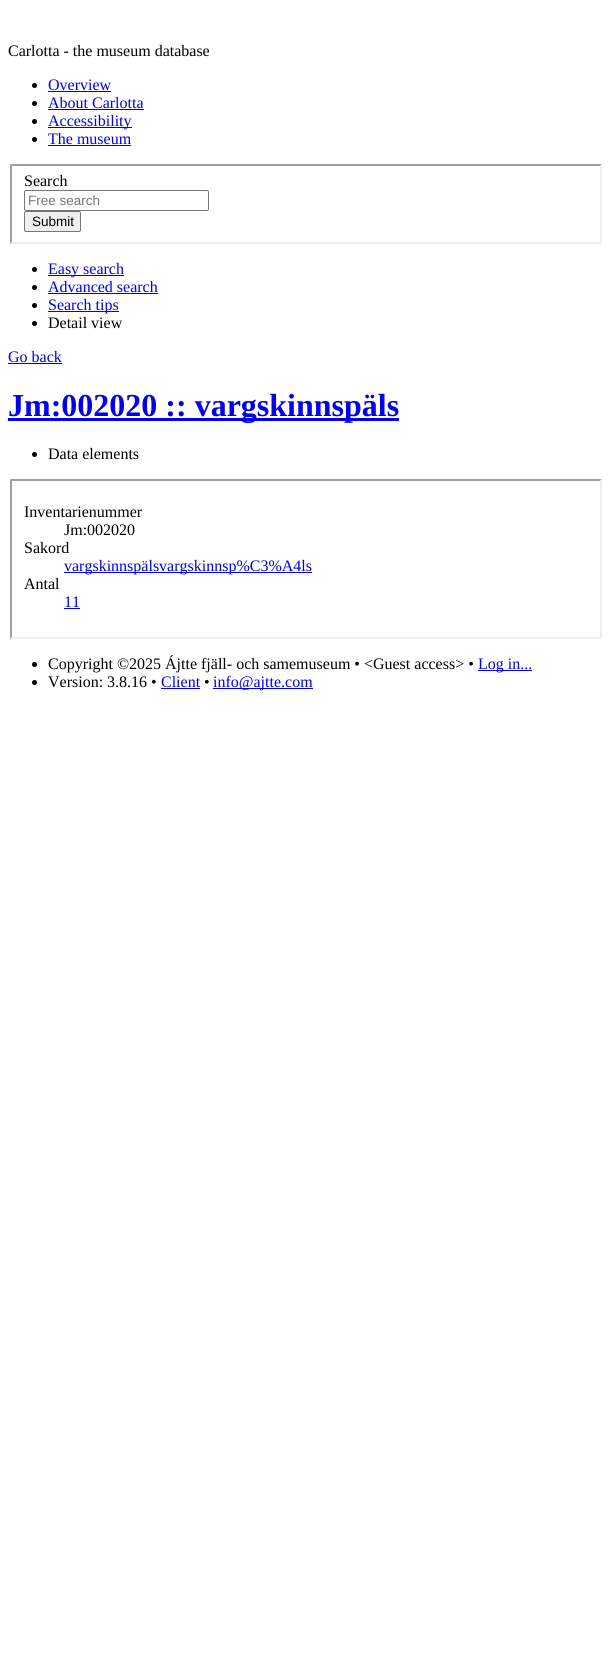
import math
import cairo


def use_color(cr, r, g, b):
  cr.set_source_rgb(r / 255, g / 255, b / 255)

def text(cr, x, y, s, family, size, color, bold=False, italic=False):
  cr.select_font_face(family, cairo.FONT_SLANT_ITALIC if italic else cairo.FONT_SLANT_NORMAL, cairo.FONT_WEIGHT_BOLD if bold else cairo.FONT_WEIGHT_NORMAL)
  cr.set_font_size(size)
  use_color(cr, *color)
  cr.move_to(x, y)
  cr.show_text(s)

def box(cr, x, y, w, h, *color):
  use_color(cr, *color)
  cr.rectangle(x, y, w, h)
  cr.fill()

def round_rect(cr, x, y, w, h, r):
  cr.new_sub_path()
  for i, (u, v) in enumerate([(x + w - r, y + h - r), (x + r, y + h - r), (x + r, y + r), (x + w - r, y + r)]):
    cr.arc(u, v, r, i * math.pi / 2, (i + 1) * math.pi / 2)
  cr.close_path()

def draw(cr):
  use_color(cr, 255, 255, 255)
  cr.paint()
  use_color(cr, 0, 0, 0)
  cr.arc(34.5, 85.5, 2.5, 0, 2 * math.pi)
  cr.fill()
  box(cr, 48, 91, 63, 1, 0, 0, 238)
  use_color(cr, 0, 0, 0)
  cr.arc(34.5, 103.5, 2.5, 0, 2 * math.pi)
  cr.fill()
  box(cr, 48, 109, 96, 1, 0, 0, 238)
  use_color(cr, 0, 0, 0)
  cr.arc(34.5, 121.5, 2.5, 0, 2 * math.pi)
  cr.fill()
  box(cr, 48, 127, 84, 1, 0, 0, 238)
  use_color(cr, 0, 0, 0)
  cr.arc(34.5, 139.5, 2.5, 0, 2 * math.pi)
  cr.fill()
  box(cr, 48, 145, 83, 1, 0, 0, 238)
  use_color(cr, 159, 159, 159)
  cr.new_path()
  cr.move_to(10, 164)
  cr.line_to(602, 164)
  cr.line_to(600, 166)
  cr.line_to(12, 166)
  cr.close_path()
  cr.fill()
  use_color(cr, 239, 239, 239)
  cr.new_path()
  cr.move_to(602, 164)
  cr.line_to(602, 244)
  cr.line_to(600, 242)
  cr.line_to(600, 166)
  cr.close_path()
  cr.fill()
  cr.new_path()
  cr.move_to(602, 244)
  cr.line_to(10, 244)
  cr.line_to(12, 242)
  cr.line_to(600, 242)
  cr.close_path()
  cr.fill()
  use_color(cr, 159, 159, 159)
  cr.new_path()
  cr.move_to(10, 244)
  cr.line_to(10, 164)
  cr.line_to(12, 166)
  cr.line_to(12, 242)
  cr.close_path()
  cr.fill()
  round_rect(cr, 24.5, 190.5, 184, 20, 1.5)
  use_color(cr, 118, 118, 118)
  cr.set_line_width(1)
  cr.stroke()
  use_color(cr, 239, 239, 239)
  round_rect(cr, 24.5, 211.5, 56, 20, 1.5)
  cr.fill_preserve()
  use_color(cr, 118, 118, 118)
  cr.stroke()
  use_color(cr, 0, 0, 0)
  cr.arc(34.5, 269.5, 2.5, 0, 2 * math.pi)
  cr.fill()
  box(cr, 48, 275, 76, 1, 0, 0, 238)
  use_color(cr, 0, 0, 0)
  cr.arc(34.5, 287.5, 2.5, 0, 2 * math.pi)
  cr.fill()
  box(cr, 48, 293, 110, 1, 0, 0, 238)
  use_color(cr, 0, 0, 0)
  cr.arc(34.5, 305.5, 2.5, 0, 2 * math.pi)
  cr.fill()
  box(cr, 48, 311, 71, 1, 0, 0, 238)
  use_color(cr, 0, 0, 0)
  cr.arc(34.5, 323.5, 2.5, 0, 2 * math.pi)
  cr.fill()
  box(cr, 8, 363, 54, 1, 0, 0, 238)
  box(cr, 8, 418, 391, 3, 0, 0, 238)
  use_color(cr, 0, 0, 0)
  cr.arc(34.5, 454.5, 2.5, 0, 2 * math.pi)
  cr.fill()
  use_color(cr, 159, 159, 159)
  cr.new_path()
  cr.move_to(10, 479)
  cr.line_to(602, 479)
  cr.line_to(600, 481)
  cr.line_to(12, 481)
  cr.close_path()
  cr.fill()
  use_color(cr, 239, 239, 239)
  cr.new_path()
  cr.move_to(602, 479)
  cr.line_to(602, 639)
  cr.line_to(600, 637)
  cr.line_to(600, 481)
  cr.close_path()
  cr.fill()
  cr.new_path()
  cr.move_to(602, 639)
  cr.line_to(10, 639)
  cr.line_to(12, 637)
  cr.line_to(600, 637)
  cr.close_path()
  cr.fill()
  use_color(cr, 159, 159, 159)
  cr.new_path()
  cr.move_to(10, 639)
  cr.line_to(10, 479)
  cr.line_to(12, 481)
  cr.line_to(12, 637)
  cr.close_path()
  cr.fill()
  box(cr, 64, 572, 248, 1, 0, 0, 238)
  box(cr, 64, 608, 16, 1, 0, 0, 238)
  use_color(cr, 0, 0, 0)
  cr.arc(34.5, 664.5, 2.5, 0, 2 * math.pi)
  cr.fill()
  box(cr, 478, 670, 54, 1, 0, 0, 238)
  use_color(cr, 0, 0, 0)
  cr.arc(34.5, 682.5, 2.5, 0, 2 * math.pi)
  cr.fill()
  box(cr, 161, 688, 39, 1, 0, 0, 238)
  box(cr, 213, 688, 100, 1, 0, 0, 238)
  text(cr, 8, 56, "Carlotta - the museum database", "Liberation Serif", 16, (0, 0, 0))
  text(cr, 48, 90, "Overview", "Liberation Serif", 16, (0, 0, 238))
  text(cr, 48, 108, "About Carlotta", "Liberation Serif", 16, (0, 0, 238))
  text(cr, 48, 126, "Accessibility", "Liberation Serif", 16, (0, 0, 238))
  text(cr, 48, 144, "The museum", "Liberation Serif", 16, (0, 0, 238))
  text(cr, 24, 186, "Search", "Liberation Serif", 16, (0, 0, 0))
  text(cr, 28, 205, "Free search", "Liberation Sans", 13.5, (117, 117, 117))
  text(cr, 32, 226, "Submit", "Liberation Sans", 13.5, (0, 0, 0))
  text(cr, 48, 274, "Easy search", "Liberation Serif", 16, (0, 0, 238))
  text(cr, 48, 292, "Advanced search", "Liberation Serif", 16, (0, 0, 238))
  text(cr, 48, 310, "Search tips", "Liberation Serif", 16, (0, 0, 238))
  text(cr, 48, 328, "Detail view", "Liberation Serif", 16, (0, 0, 0))
  text(cr, 8, 362, "Go back", "Liberation Serif", 16, (0, 0, 238))
  text(cr, 8, 416, "Jm:002020 :: vargskinnspäls", "Liberation Serif", 32, (0, 0, 238), bold=True)
  text(cr, 48, 459, "Data elements", "Liberation Serif", 16, (0, 0, 0))
  text(cr, 24, 517, "Inventarienummer", "Liberation Serif", 16, (0, 0, 0))
  text(cr, 64, 535, "Jm:002020", "Liberation Serif", 16, (0, 0, 0))
  text(cr, 24, 553, "Sakord", "Liberation Serif", 16, (0, 0, 0))
  text(cr, 64, 571, "vargskinnspälsvargskinnsp%C3%A4ls", "Liberation Serif", 16, (0, 0, 238))
  text(cr, 24, 589, "Antal", "Liberation Serif", 16, (0, 0, 0))
  text(cr, 64, 607, "11", "Liberation Serif", 16, (0, 0, 238))
  text(cr, 48, 669, "Copyright ©2025 Ájtte fjäll- och samemuseum • <Guest access> •", "Liberation Serif", 16, (0, 0, 0))
  text(cr, 478, 669, "Log in...", "Liberation Serif", 16, (0, 0, 238))
  text(cr, 48, 687, "Version: 3.8.16 •", "Liberation Serif", 16, (0, 0, 0))
  text(cr, 161, 687, "Client", "Liberation Serif", 16, (0, 0, 238))
  text(cr, 204, 687, "•", "Liberation Serif", 16, (0, 0, 0))
  text(cr, 213, 687, "info@ajtte.com", "Liberation Serif", 16, (0, 0, 238))


surface = cairo.ImageSurface(cairo.FORMAT_RGB24, 612, 1673)
cr = cairo.Context(surface)
options = cairo.FontOptions()
options.set_hint_metrics(cairo.HINT_METRICS_OFF)
options.set_hint_style(cairo.HINT_STYLE_NONE)
cr.set_font_options(options)
cr.set_miter_limit(4)
draw(cr)
surface.write_to_png("out.png")
